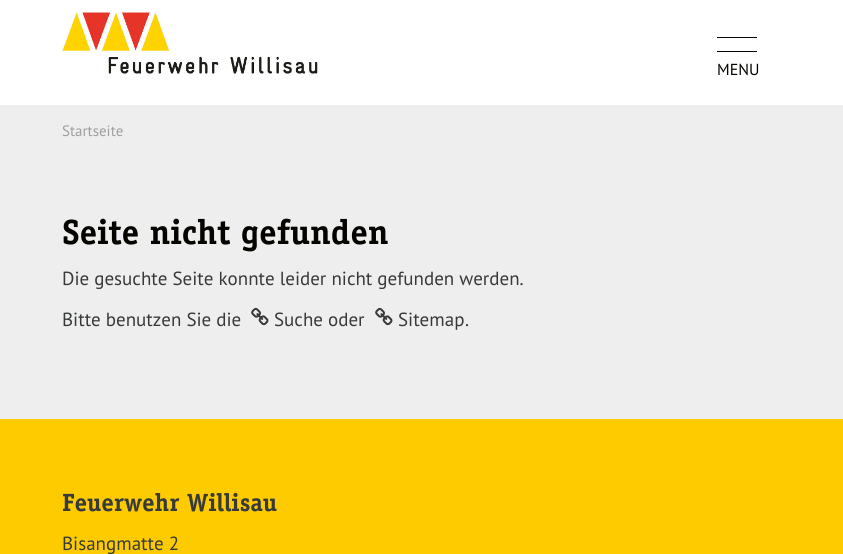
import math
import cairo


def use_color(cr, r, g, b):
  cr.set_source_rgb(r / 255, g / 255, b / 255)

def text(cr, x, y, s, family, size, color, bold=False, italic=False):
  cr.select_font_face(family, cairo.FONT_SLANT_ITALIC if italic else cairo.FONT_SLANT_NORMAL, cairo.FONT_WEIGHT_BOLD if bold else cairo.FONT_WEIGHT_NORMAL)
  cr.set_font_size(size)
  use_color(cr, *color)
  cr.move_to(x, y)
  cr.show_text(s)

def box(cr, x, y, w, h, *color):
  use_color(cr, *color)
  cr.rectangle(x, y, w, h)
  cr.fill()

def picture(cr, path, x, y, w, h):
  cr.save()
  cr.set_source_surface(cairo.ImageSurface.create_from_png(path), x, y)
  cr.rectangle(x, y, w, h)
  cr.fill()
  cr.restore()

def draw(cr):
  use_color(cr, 238, 238, 238)
  cr.paint()
  box(cr, 0, 0, 843, 105, 255, 255, 255)
  picture(cr, "img_01.png", 62, 12, 256, 62)
  box(cr, 717, 37, 40, 1, 4, 3, 0)
  box(cr, 717, 51, 40, 1, 4, 3, 0)
  picture(cr, "img_02.png", 251, 307, 18, 19)
  picture(cr, "img_02.png", 375, 307, 18, 19)
  box(cr, 0, 419, 843, 135, 253, 203, 0)
  text(cr, 717, 75, "MENU", "PT Sans", 16, (4, 3, 0))
  text(cr, 62, 136, "Startseite", "PT Sans", 15, (158, 158, 158))
  text(cr, 62, 244, "Seite nicht gefunden", "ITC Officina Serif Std", 35, (4, 3, 0), bold=True)
  text(cr, 62, 285, "Die gesuchte Seite konnte leider nicht gefunden werden.", "PT Sans", 19, (55, 58, 57))
  text(cr, 62, 326, "Bitte benutzen Sie die", "PT Sans", 19, (55, 58, 57))
  text(cr, 274, 326, "Suche", "PT Sans", 19, (55, 58, 57))
  text(cr, 328, 326, "oder", "PT Sans", 19, (55, 58, 57))
  text(cr, 398, 326, "Sitemap", "PT Sans", 19, (55, 58, 57))
  text(cr, 465, 326, ".", "PT Sans", 19, (55, 58, 57))
  text(cr, 62, 511, "Feuerwehr Willisau", "ITC Officina Serif Std", 25, (55, 58, 57), bold=True)
  text(cr, 62, 550, "Bisangmatte 2", "PT Sans", 19, (55, 58, 57))


surface = cairo.ImageSurface(cairo.FORMAT_RGB24, 843, 554)
cr = cairo.Context(surface)
options = cairo.FontOptions()
options.set_hint_metrics(cairo.HINT_METRICS_OFF)
options.set_hint_style(cairo.HINT_STYLE_NONE)
cr.set_font_options(options)
cr.set_miter_limit(4)
draw(cr)
surface.write_to_png("out.png")
